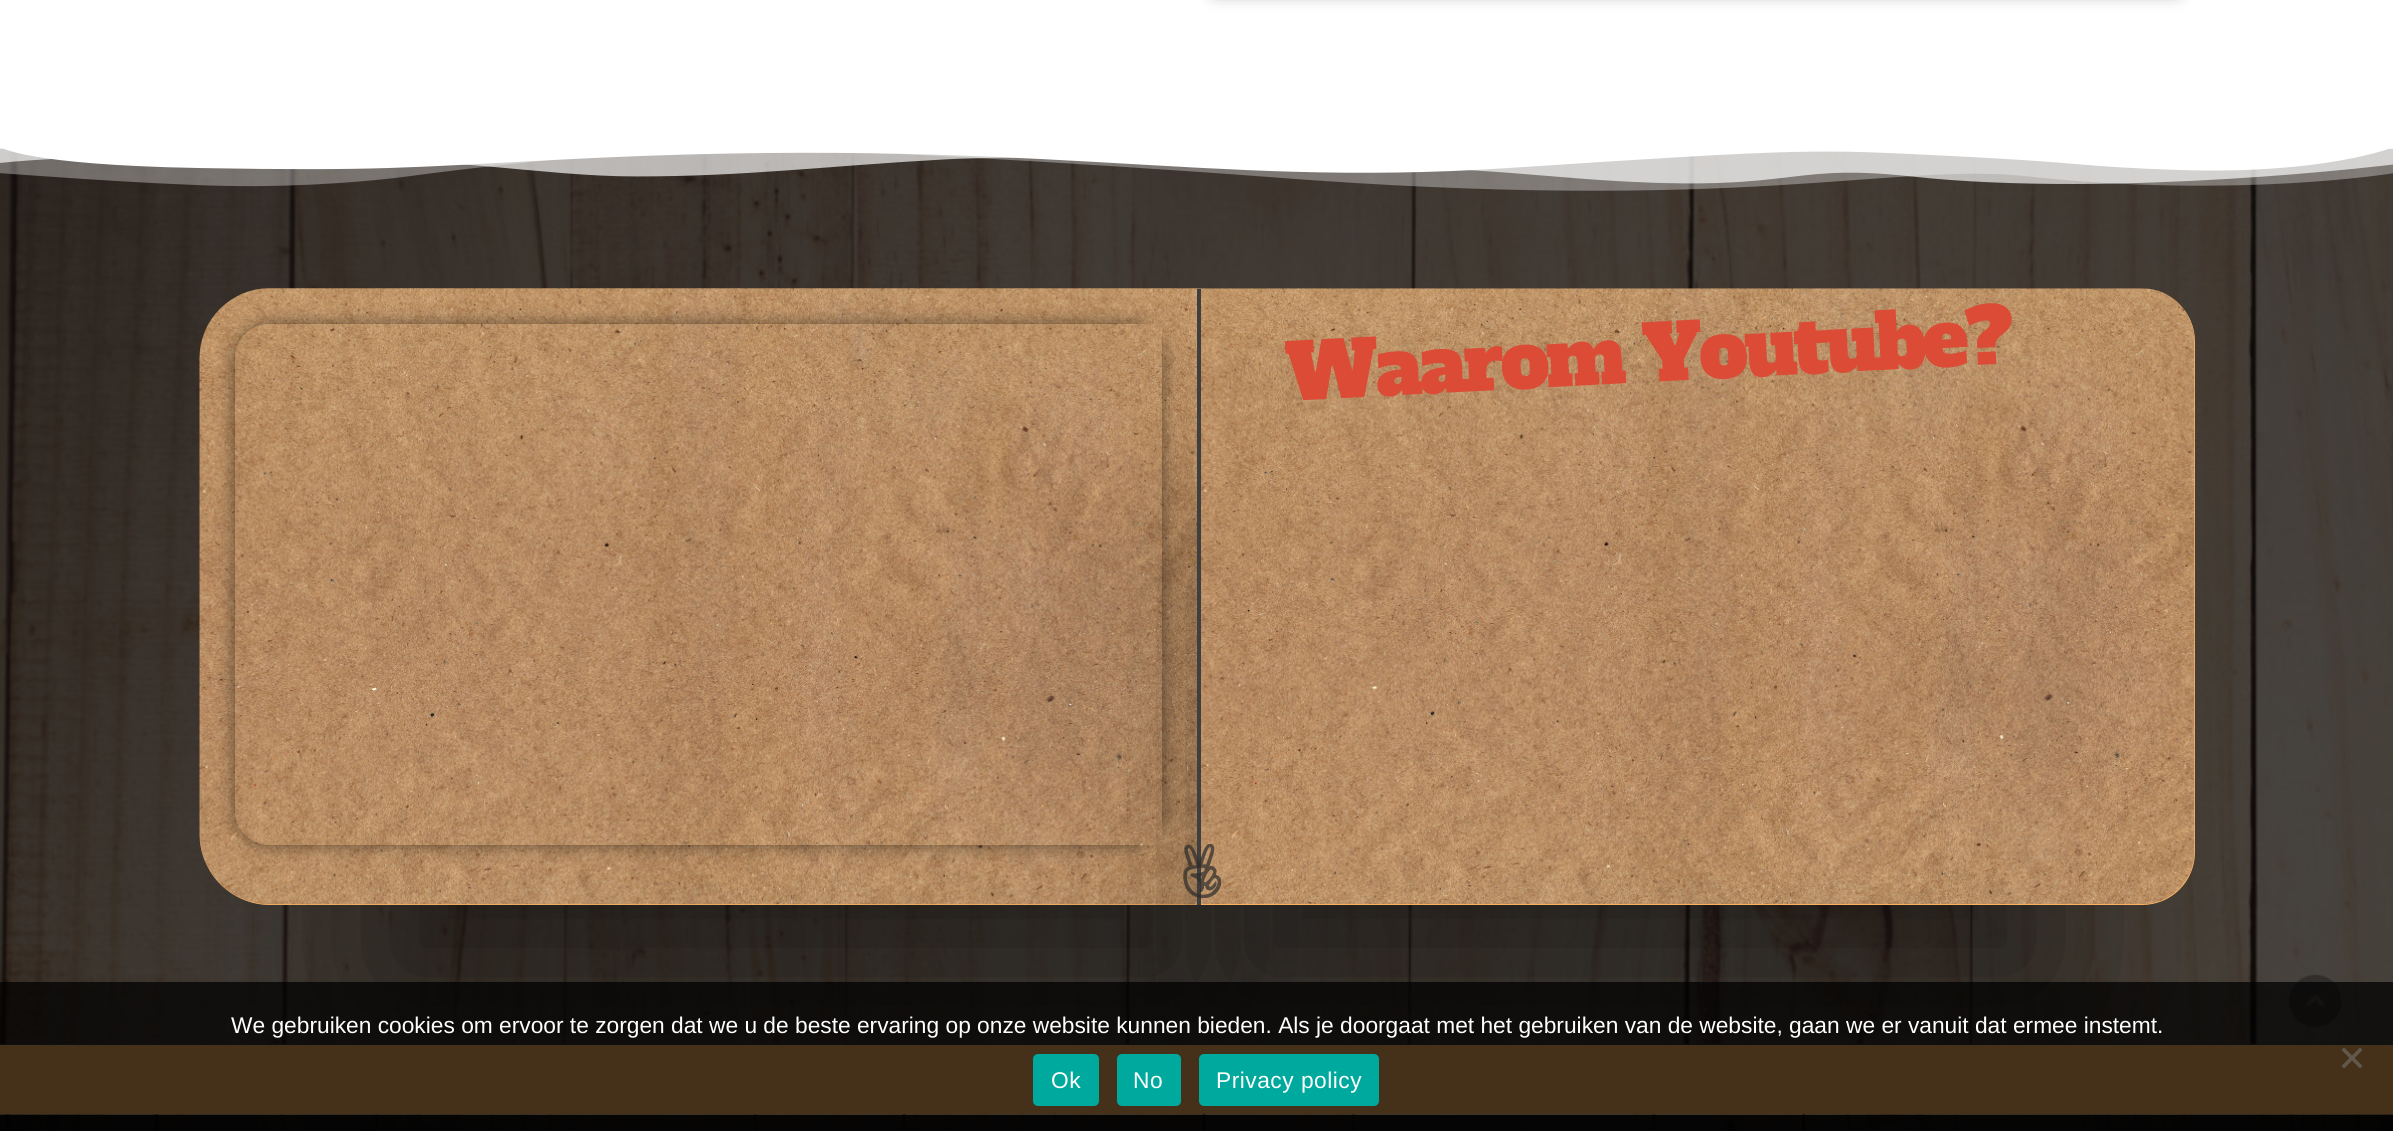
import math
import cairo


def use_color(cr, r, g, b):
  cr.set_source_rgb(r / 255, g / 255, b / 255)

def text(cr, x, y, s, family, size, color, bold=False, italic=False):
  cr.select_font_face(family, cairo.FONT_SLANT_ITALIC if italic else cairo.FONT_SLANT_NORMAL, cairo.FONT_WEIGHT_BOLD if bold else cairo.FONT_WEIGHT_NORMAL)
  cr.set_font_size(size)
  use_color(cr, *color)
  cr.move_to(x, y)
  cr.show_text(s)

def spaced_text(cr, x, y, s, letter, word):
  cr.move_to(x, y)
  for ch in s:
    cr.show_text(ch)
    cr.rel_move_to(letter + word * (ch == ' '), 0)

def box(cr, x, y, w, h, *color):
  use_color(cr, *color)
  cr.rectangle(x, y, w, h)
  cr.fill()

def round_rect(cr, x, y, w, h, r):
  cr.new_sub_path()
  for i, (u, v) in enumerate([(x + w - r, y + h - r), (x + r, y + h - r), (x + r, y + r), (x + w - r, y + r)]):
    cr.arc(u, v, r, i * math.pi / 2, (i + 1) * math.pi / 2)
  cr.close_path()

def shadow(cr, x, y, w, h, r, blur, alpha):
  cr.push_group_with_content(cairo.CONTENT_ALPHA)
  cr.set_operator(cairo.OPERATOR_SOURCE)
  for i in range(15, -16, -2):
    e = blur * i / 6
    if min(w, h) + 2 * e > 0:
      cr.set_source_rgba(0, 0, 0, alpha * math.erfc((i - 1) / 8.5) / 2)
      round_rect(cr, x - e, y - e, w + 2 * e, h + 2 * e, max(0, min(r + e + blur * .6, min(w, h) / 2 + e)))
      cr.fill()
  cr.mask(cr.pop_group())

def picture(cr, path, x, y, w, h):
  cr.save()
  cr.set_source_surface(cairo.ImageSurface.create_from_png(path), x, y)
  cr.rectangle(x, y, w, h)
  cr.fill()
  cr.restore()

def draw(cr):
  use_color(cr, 51, 66, 73)
  cr.paint()
  box(cr, 0, 0, 2393, 149, 255, 255, 255)
  use_color(cr, 0, 0, 0)
  shadow(cr, 1215, -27, 962, 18, 0, 9, 0.5)
  picture(cr, "img_01.png", 0, 148, 2393, 897)
  picture(cr, "img_02.png", 0, 148, 2393, 43)
  shadow(cr, 375, 551, 822, 441, 0, 87.5, 0.5)
  use_color(cr, 255, 179, 95)
  cr.new_path()
  cr.move_to(270, 289)
  cr.line_to(1197, 289)
  cr.line_to(1197, 905)
  cr.line_to(270, 905)
  cr.curve_to(231.5, 905, 200, 873.5, 200, 835)
  cr.line_to(200, 359)
  cr.curve_to(200, 320.5, 231.5, 289, 270, 289)
  cr.close_path()
  cr.fill()
  picture(cr, "img_03.png", 199, 288, 998, 617)
  cr.save()
  cr.set_fill_rule(cairo.FILL_RULE_EVEN_ODD)
  cr.new_path()
  cr.move_to(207, 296)
  cr.line_to(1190, 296)
  cr.line_to(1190, 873)
  cr.line_to(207, 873)
  cr.close_path()
  cr.move_to(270, 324)
  cr.line_to(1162, 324)
  cr.line_to(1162, 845)
  cr.line_to(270, 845)
  cr.curve_to(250.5, 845, 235, 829.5, 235, 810)
  cr.line_to(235, 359)
  cr.curve_to(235, 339.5, 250.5, 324, 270, 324)
  cr.close_path()
  cr.clip()
  use_color(cr, 0, 0, 0)
  shadow(cr, 235, 324, 927, 521, 35, 9, 0.5)
  cr.restore()
  use_color(cr, 0, 0, 0)
  shadow(cr, 1229, 551, 822, 441, 0, 87.5, 0.5)
  use_color(cr, 255, 179, 95)
  cr.new_path()
  cr.move_to(1197, 289)
  cr.line_to(2142, 289)
  cr.curve_to(2171.5, 289, 2195, 312.5, 2195, 342)
  cr.line_to(2195, 852)
  cr.curve_to(2195, 881.5, 2171.5, 905, 2142, 905)
  cr.line_to(1197, 905)
  cr.close_path()
  cr.fill()
  picture(cr, "img_04.png", 1197, 288, 998, 617)
  box(cr, 1197, 289, 4, 616, 63, 63, 63)
  picture(cr, "img_05.png", 1183, 844, 39, 54)
  picture(cr, "img_06.png", 2289, 974, 53, 54)
  box(cr, 0, 1045, 2393, 70, 255, 179, 95)
  picture(cr, "img_07.png", 0, 1114, 2393, 17)
  cr.set_source_rgba(0, 0, 0, 0.73)
  cr.rectangle(0, 982, 2393, 149)
  cr.fill()
  use_color(cr, 98, 88, 77)
  cr.new_path()
  cr.move_to(2360, 1047.5)
  cr.line_to(2362.5, 1050)
  cr.line_to(2344, 1068.5)
  cr.line_to(2341.5, 1066)
  cr.close_path()
  cr.fill()
  cr.new_path()
  cr.move_to(2341.5, 1050)
  cr.line_to(2344, 1047.5)
  cr.line_to(2362.5, 1066)
  cr.line_to(2360, 1068.5)
  cr.close_path()
  cr.fill()
  use_color(cr, 0, 169, 157)
  round_rect(cr, 1033, 1054, 66, 52, 5)
  cr.fill()
  round_rect(cr, 1117, 1054, 64, 52, 5)
  cr.fill()
  round_rect(cr, 1199, 1054, 180, 52, 5)
  cr.fill()
  cr.select_font_face("Alfa Slab One")
  cr.set_font_size(77)
  use_color(cr, 219, 75, 53)
  cr.save()
  cr.translate(1287, 401)
  cr.rotate(-3 * math.pi / 180)
  spaced_text(cr, 0, 0, "Waarom Youtube?", -3.25, 0)
  cr.restore()
  text(cr, 231, 1033, "We gebruiken cookies om ervoor te zorgen dat we u de beste ervaring op onze website kunnen bieden. Als je doorgaat met het gebruiken van de website, gaan we er vanuit dat ermee instemt.", "Liberation Sans", 22.75, (255, 255, 255))
  spaced_text(cr, 1051, 1088, "Ok", 0.5, 0)
  spaced_text(cr, 1133, 1088, "No", 0.5, 0)
  spaced_text(cr, 1216, 1088, "Privacy policy", 0.5, 0)


surface = cairo.ImageSurface(cairo.FORMAT_RGB24, 2393, 1131)
cr = cairo.Context(surface)
options = cairo.FontOptions()
options.set_hint_metrics(cairo.HINT_METRICS_OFF)
options.set_hint_style(cairo.HINT_STYLE_NONE)
cr.set_font_options(options)
cr.set_miter_limit(4)
draw(cr)
surface.write_to_png("out.png")
